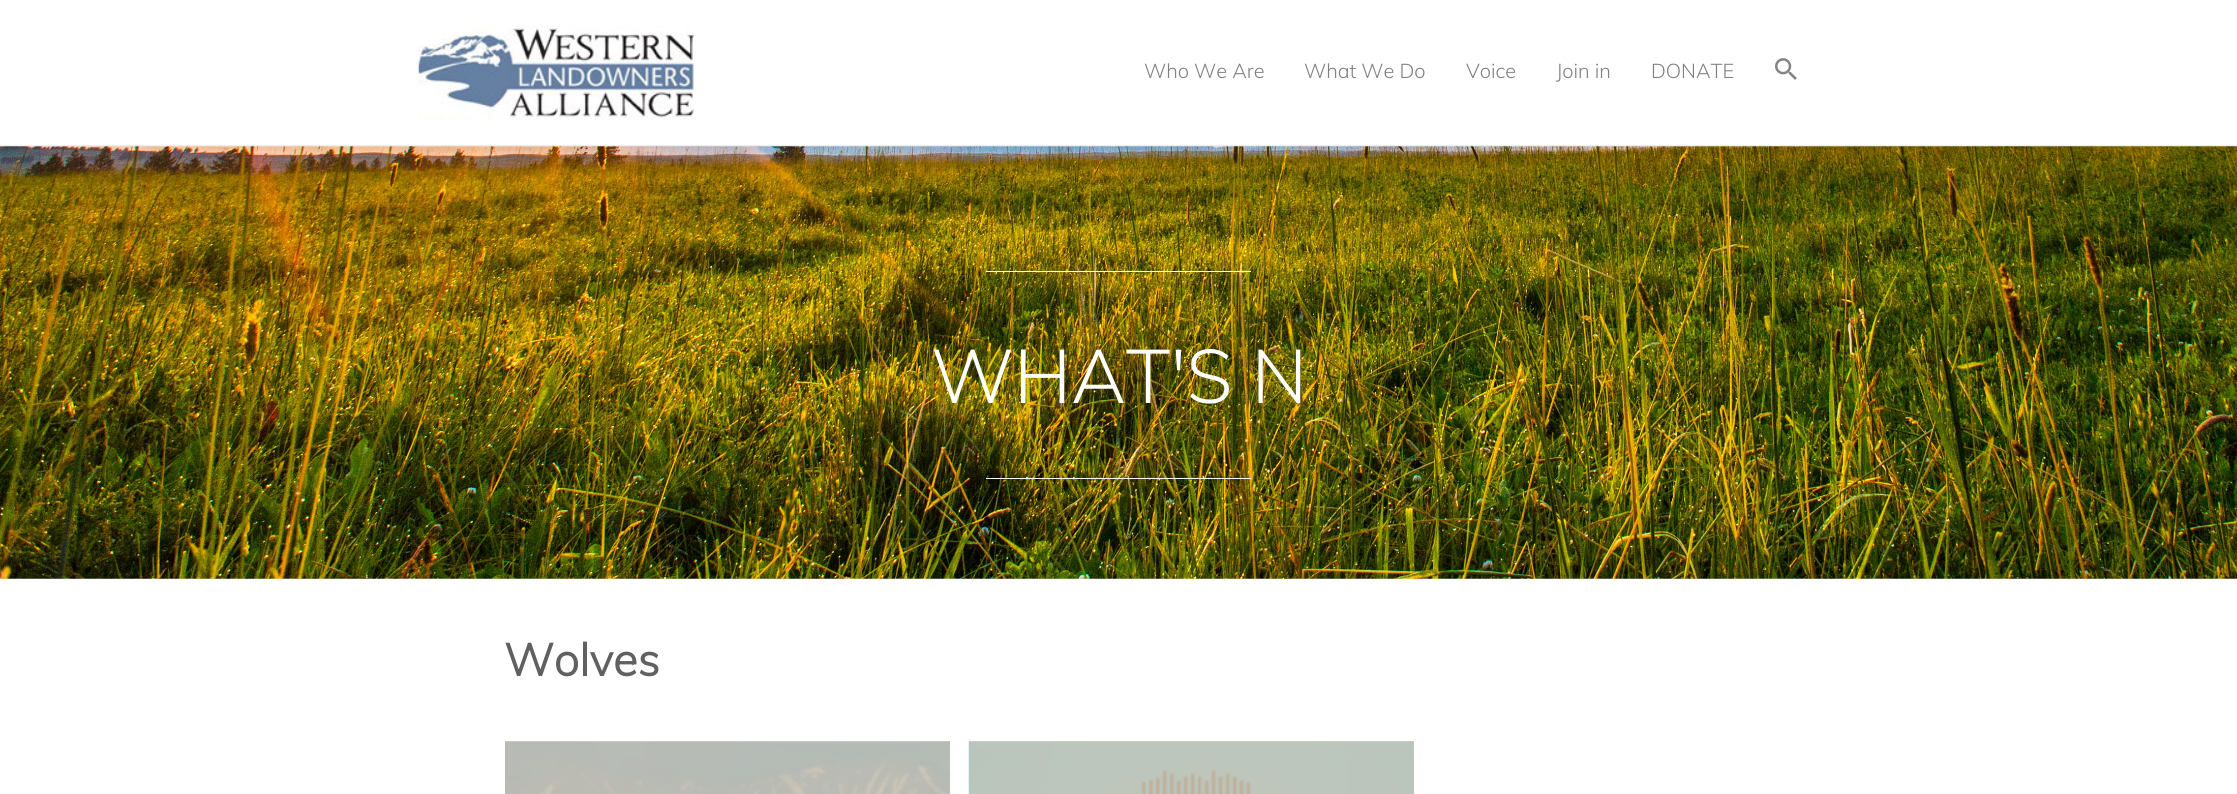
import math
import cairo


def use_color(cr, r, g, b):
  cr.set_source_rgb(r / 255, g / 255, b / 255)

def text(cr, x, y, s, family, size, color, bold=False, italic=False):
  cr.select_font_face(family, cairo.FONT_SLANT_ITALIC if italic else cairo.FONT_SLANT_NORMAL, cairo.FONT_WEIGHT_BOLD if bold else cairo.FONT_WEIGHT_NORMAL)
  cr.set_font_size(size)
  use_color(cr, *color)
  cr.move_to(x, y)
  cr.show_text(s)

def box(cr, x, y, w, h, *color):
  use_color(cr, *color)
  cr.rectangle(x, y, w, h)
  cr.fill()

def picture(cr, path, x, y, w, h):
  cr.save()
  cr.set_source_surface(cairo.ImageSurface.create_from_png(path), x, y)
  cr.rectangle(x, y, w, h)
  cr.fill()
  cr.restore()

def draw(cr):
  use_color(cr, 255, 255, 255)
  cr.paint()
  box(cr, 0, 145, 2237, 1, 238, 238, 238)
  picture(cr, "img_01.png", 418, 25, 276, 95)
  picture(cr, "img_02.png", 1775, 58, 22, 22)
  picture(cr, "img_03.png", 0, 146, 2237, 433)
  box(cr, 986, 271, 265, 1, 255, 255, 255)
  box(cr, 986, 478, 265, 1, 255, 255, 255)
  box(cr, 505, 741, 445, 1, 208, 205, 193)
  picture(cr, "img_04.png", 505, 741, 445, 53)
  box(cr, 969, 741, 445, 53, 208, 205, 193)
  picture(cr, "img_05.png", 968, 741, 446, 53)
  text(cr, 1144, 78, "Who We Are", "Muli Light", 20, (128, 128, 128))
  text(cr, 1304, 78, "What We Do", "Muli Light", 20, (128, 128, 128))
  text(cr, 1466, 78, "Voice", "Muli Light", 20, (128, 128, 128))
  text(cr, 1556, 78, "Join in", "Muli Light", 20, (128, 128, 128))
  text(cr, 1651, 78, "DONATE", "Muli Light", 20, (128, 128, 128))
  text(cr, 931, 403, "WHAT'S N", "Muli Light", 75, (255, 255, 255))
  text(cr, 504, 676, "Wolves", "Muli", 45, (96, 96, 96), bold=True)


surface = cairo.ImageSurface(cairo.FORMAT_RGB24, 2237, 794)
cr = cairo.Context(surface)
options = cairo.FontOptions()
options.set_hint_metrics(cairo.HINT_METRICS_OFF)
options.set_hint_style(cairo.HINT_STYLE_NONE)
cr.set_font_options(options)
cr.set_miter_limit(4)
draw(cr)
surface.write_to_png("out.png")
